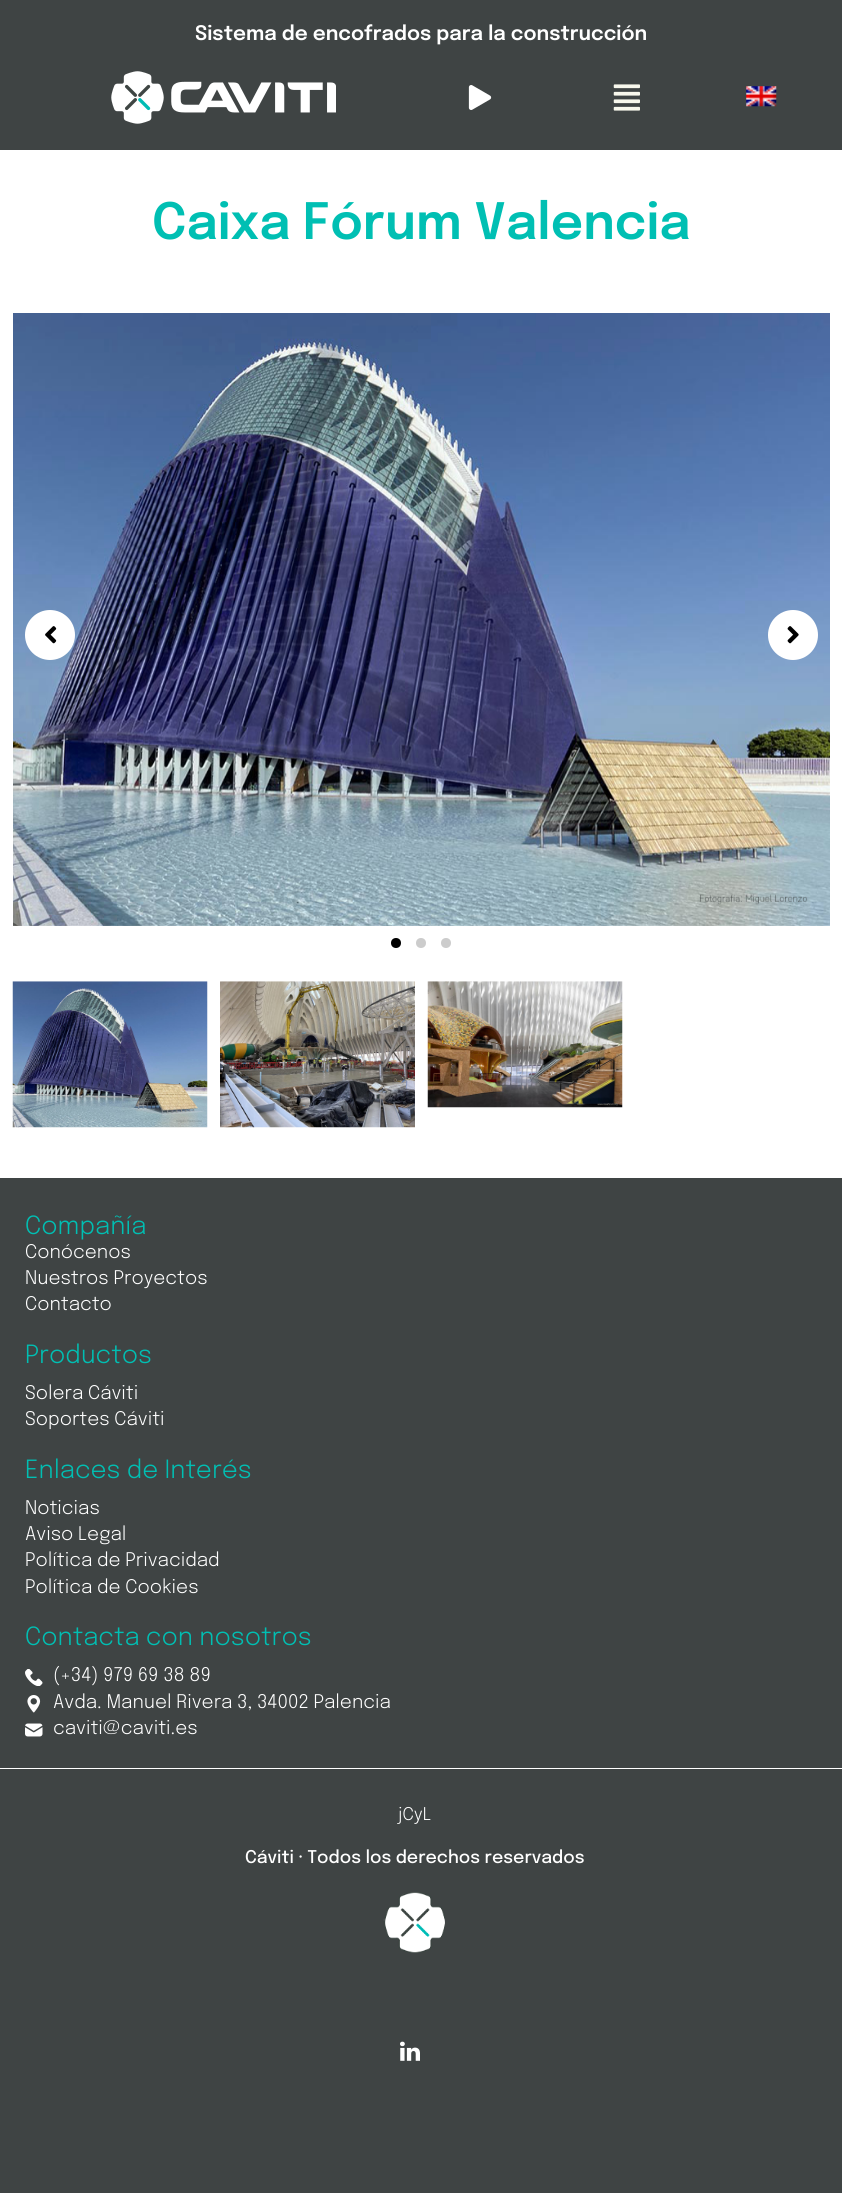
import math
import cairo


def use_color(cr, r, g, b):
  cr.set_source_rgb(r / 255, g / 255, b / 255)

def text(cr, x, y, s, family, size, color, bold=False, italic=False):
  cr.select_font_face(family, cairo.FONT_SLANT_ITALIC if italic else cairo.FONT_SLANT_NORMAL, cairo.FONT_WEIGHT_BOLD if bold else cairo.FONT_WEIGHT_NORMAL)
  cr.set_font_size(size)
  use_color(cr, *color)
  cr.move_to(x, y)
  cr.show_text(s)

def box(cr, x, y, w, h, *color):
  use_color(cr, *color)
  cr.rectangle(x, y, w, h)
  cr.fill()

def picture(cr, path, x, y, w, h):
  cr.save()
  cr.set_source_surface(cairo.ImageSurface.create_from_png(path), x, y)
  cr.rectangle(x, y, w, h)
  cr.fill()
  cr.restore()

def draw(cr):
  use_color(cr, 63, 68, 68)
  cr.paint()
  picture(cr, "img_01.png", 111, 71, 225, 53)
  picture(cr, "img_02.png", 468, 85, 24, 25)
  picture(cr, "img_03.png", 613, 84, 27, 27)
  picture(cr, "img_04.png", 746, 86, 31, 21)
  box(cr, 0, 150, 842, 1028, 255, 255, 255)
  picture(cr, "img_05.png", 13, 313, 817, 613)
  cr.arc(50, 635, 25, 0, 2 * math.pi)
  cr.fill()
  picture(cr, "img_06.png", 45, 626, 12, 18)
  cr.arc(793, 635, 25, 0, 2 * math.pi)
  cr.fill()
  picture(cr, "img_07.png", 787, 626, 12, 18)
  use_color(cr, 0, 0, 0)
  cr.arc(396, 943, 5, 0, 2 * math.pi)
  cr.fill()
  use_color(cr, 204, 204, 204)
  cr.arc(421, 943, 5, 0, 2 * math.pi)
  cr.fill()
  cr.arc(446, 943, 5, 0, 2 * math.pi)
  cr.fill()
  picture(cr, "img_08.png", 12, 981, 196, 147)
  picture(cr, "img_09.png", 220, 981, 195, 147)
  picture(cr, "img_10.png", 427, 981, 196, 127)
  picture(cr, "img_11.png", 25, 1669, 18, 17)
  picture(cr, "img_12.png", 27, 1695, 14, 18)
  picture(cr, "img_13.png", 25, 1723, 18, 14)
  box(cr, 0, 1768, 842, 1, 255, 255, 255)
  picture(cr, "img_14.png", 383, 1892, 62, 61)
  picture(cr, "img_15.png", 400, 2041, 20, 20)
  text(cr, 195, 40, "Sistema de encofrados para la construcción", "Epilogue SemiBold", 20, (255, 255, 255))
  text(cr, 152, 239, "Caixa Fórum Valencia", "Epilogue SemiBold", 50, (0, 191, 179))
  text(cr, 25, 1234, "Compañía", "Epilogue Light", 25, (0, 191, 179))
  text(cr, 25, 1258, "Conócenos", "Epilogue Light", 18.75, (255, 255, 255))
  text(cr, 25, 1284, "Nuestros Proyectos", "Epilogue Light", 18.75, (255, 255, 255))
  text(cr, 25, 1310, "Contacto", "Epilogue Light", 18.75, (255, 255, 255))
  text(cr, 25, 1363, "Productos", "Epilogue Light", 25, (0, 191, 179))
  text(cr, 25, 1399, "Solera Cáviti", "Epilogue Light", 18.75, (255, 255, 255))
  text(cr, 25, 1425, "Soportes Cáviti", "Epilogue Light", 18.75, (255, 255, 255))
  text(cr, 25, 1478, "Enlaces de Interés", "Epilogue Light", 25, (0, 191, 179))
  text(cr, 25, 1514, "Noticias", "Epilogue Light", 18.75, (255, 255, 255))
  text(cr, 25, 1540, "Aviso Legal", "Epilogue Light", 18.75, (255, 255, 255))
  text(cr, 25, 1566, "Política de Privacidad", "Epilogue Light", 18.75, (255, 255, 255))
  text(cr, 25, 1593, "Política de Cookies", "Epilogue Light", 18.75, (255, 255, 255))
  text(cr, 25, 1645, "Contacta con nosotros", "Epilogue Light", 25, (0, 191, 179))
  text(cr, 53, 1681, "(+34) 979 69 38 89", "Epilogue Light", 18.75, (255, 255, 255))
  text(cr, 53, 1708, "Avda. Manuel Rivera 3, 34002 Palencia", "Epilogue Light", 18.75, (255, 255, 255))
  text(cr, 53, 1734, "caviti@caviti.es", "Epilogue Light", 18.75, (255, 255, 255))
  text(cr, 398, 1820, "jCyL", "Epilogue Light", 17.5, (255, 255, 255))
  text(cr, 245, 1863, "Cáviti · Todos los derechos reservados", "Epilogue Medium", 17.5, (255, 255, 255))


surface = cairo.ImageSurface(cairo.FORMAT_RGB24, 842, 2193)
cr = cairo.Context(surface)
options = cairo.FontOptions()
options.set_hint_metrics(cairo.HINT_METRICS_OFF)
options.set_hint_style(cairo.HINT_STYLE_NONE)
cr.set_font_options(options)
cr.set_miter_limit(4)
draw(cr)
surface.write_to_png("out.png")
